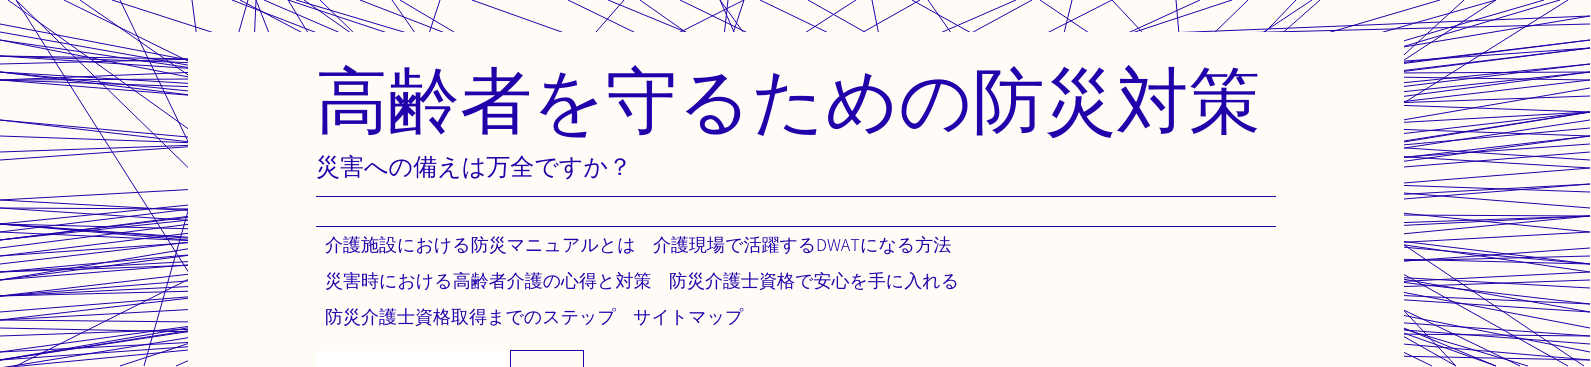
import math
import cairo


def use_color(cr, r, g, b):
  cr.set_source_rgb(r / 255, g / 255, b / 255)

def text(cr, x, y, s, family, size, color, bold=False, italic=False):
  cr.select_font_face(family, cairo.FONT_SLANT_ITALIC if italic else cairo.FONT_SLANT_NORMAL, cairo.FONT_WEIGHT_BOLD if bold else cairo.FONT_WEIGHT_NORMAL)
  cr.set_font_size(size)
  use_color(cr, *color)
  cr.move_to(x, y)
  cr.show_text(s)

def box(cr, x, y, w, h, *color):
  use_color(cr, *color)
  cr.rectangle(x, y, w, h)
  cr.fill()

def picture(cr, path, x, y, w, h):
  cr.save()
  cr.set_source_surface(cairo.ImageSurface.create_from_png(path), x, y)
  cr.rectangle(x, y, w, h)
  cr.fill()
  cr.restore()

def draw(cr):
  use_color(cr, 255, 252, 247)
  cr.paint()
  picture(cr, "img_01.png", 0, 0, 1590, 367)
  box(cr, 188, 32, 1216, 335, 255, 252, 247)
  box(cr, 316, 196, 960, 1, 34, 0, 170)
  box(cr, 316, 226, 960, 1, 34, 0, 170)
  box(cr, 316, 351, 191, 16, 255, 255, 255)
  cr.rectangle(510.5, 350.5, 73, 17)
  use_color(cr, 34, 0, 170)
  cr.set_line_width(1)
  cr.stroke()
  text(cr, 316, 126, "高齢者を守るための防災対策", "WenQuanYi Zen Hei Medium", 72, (34, 0, 170))
  text(cr, 316, 175, "災害への備えは万全ですか？", "WenQuanYi Zen Hei Medium", 24, (34, 0, 170))
  text(cr, 325, 251, "介護施設における防災マニュアルとは", "WenQuanYi Zen Hei Medium", 18, (34, 0, 170))
  text(cr, 653, 251, "介護現場で活躍する", "WenQuanYi Zen Hei Medium", 18, (34, 0, 170))
  text(cr, 816, 251, "DWAT", "Assistant Light", 18, (34, 0, 170))
  text(cr, 860, 251, "になる方法", "WenQuanYi Zen Hei Medium", 18, (34, 0, 170))
  text(cr, 325, 287, "災害時における高齢者介護の心得と対策", "WenQuanYi Zen Hei Medium", 18, (34, 0, 170))
  text(cr, 669, 287, "防災介護士資格で安心を手に入れる", "WenQuanYi Zen Hei Medium", 18, (34, 0, 170))
  text(cr, 325, 323, "防災介護士資格取得までのステップ", "WenQuanYi Zen Hei Medium", 18, (34, 0, 170))
  text(cr, 633, 323, "サイトマップ", "WenQuanYi Zen Hei Medium", 18, (34, 0, 170))


surface = cairo.ImageSurface(cairo.FORMAT_RGB24, 1591, 367)
cr = cairo.Context(surface)
options = cairo.FontOptions()
options.set_hint_metrics(cairo.HINT_METRICS_OFF)
options.set_hint_style(cairo.HINT_STYLE_NONE)
cr.set_font_options(options)
cr.set_miter_limit(4)
draw(cr)
surface.write_to_png("out.png")
